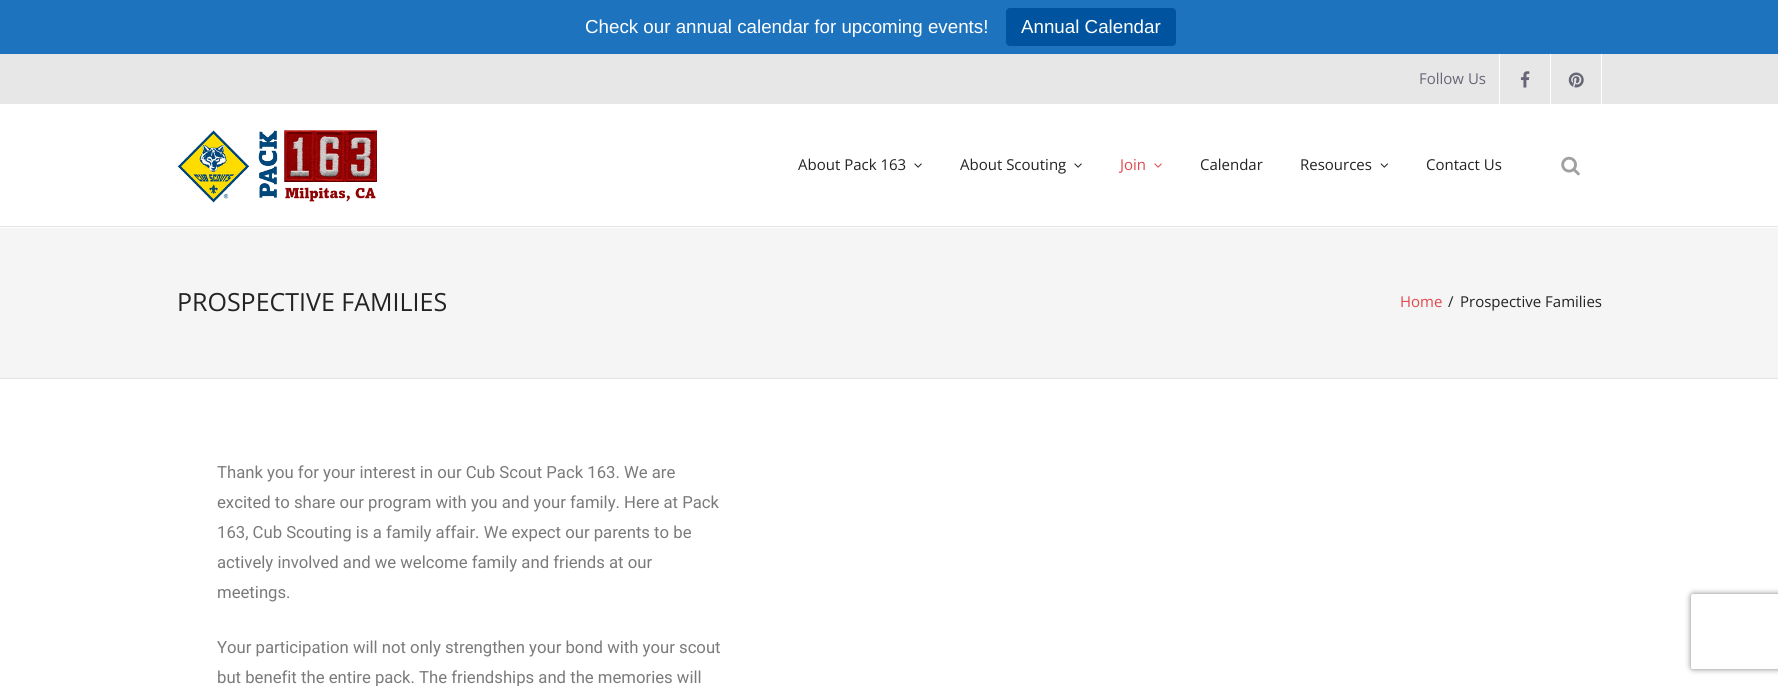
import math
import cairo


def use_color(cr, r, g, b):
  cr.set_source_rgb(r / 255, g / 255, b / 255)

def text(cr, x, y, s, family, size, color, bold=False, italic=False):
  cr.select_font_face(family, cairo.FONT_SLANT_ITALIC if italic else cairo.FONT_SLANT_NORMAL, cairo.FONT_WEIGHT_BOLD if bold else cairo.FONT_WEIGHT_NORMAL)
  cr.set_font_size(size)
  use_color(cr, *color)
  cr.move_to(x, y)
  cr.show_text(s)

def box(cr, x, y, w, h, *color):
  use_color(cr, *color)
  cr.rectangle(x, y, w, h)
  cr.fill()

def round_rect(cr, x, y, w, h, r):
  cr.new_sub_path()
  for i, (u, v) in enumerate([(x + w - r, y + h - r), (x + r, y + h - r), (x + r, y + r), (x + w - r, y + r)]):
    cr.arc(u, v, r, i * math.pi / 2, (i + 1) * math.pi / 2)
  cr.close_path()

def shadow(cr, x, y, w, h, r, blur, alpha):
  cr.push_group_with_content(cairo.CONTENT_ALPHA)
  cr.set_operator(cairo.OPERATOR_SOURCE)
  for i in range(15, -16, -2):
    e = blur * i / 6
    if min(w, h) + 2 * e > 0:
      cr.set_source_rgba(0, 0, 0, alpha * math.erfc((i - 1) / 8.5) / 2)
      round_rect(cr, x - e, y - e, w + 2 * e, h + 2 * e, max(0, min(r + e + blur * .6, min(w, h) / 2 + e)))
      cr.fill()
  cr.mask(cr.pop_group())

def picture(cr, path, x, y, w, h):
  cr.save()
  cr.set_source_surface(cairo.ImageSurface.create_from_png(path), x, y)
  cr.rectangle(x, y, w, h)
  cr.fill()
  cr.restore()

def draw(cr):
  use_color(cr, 255, 255, 255)
  cr.paint()
  box(cr, 0, 0, 1778, 54, 30, 115, 190)
  use_color(cr, 0, 84, 159)
  round_rect(cr, 1006, 8, 170, 38, 4)
  cr.fill()
  box(cr, 0, 54, 1778, 50, 231, 231, 231)
  box(cr, 1499, 54, 1, 50, 255, 255, 255)
  picture(cr, "img_01.png", 1520, 71, 10, 17)
  box(cr, 1601, 54, 1, 50, 255, 255, 255)
  box(cr, 1550, 54, 1, 50, 255, 255, 255)
  picture(cr, "img_02.png", 1568, 72, 16, 16)
  box(cr, 0, 226, 1778, 1, 227, 227, 227)
  picture(cr, "img_03.png", 177, 130, 200, 73)
  picture(cr, "img_04.png", 914, 163, 8, 5)
  picture(cr, "img_04.png", 1074, 163, 8, 5)
  picture(cr, "img_05.png", 1154, 163, 8, 5)
  picture(cr, "img_06.png", 1380, 163, 8, 5)
  picture(cr, "img_07.png", 1561, 156, 19, 20)
  box(cr, 0, 228, 1778, 150, 245, 245, 245)
  box(cr, 0, 378, 1778, 1, 227, 227, 227)
  cr.save()
  cr.set_fill_rule(cairo.FILL_RULE_EVEN_ODD)
  cr.new_path()
  cr.move_to(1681, 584)
  cr.line_to(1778, 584)
  cr.line_to(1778, 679)
  cr.line_to(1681, 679)
  cr.close_path()
  cr.move_to(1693.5, 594)
  cr.line_to(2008.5, 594)
  cr.curve_to(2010, 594, 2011, 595, 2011, 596.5)
  cr.line_to(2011, 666.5)
  cr.curve_to(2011, 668, 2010, 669, 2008.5, 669)
  cr.line_to(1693.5, 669)
  cr.curve_to(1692, 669, 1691, 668, 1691, 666.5)
  cr.line_to(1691, 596.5)
  cr.curve_to(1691, 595, 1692, 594, 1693.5, 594)
  cr.close_path()
  cr.clip()
  use_color(cr, 128, 128, 128)
  shadow(cr, 1691, 594, 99, 75, 2.5, 3, 1)
  cr.restore()
  text(cr, 585, 33, "Check our annual calendar for upcoming events!", "Liberation Sans", 18.75, (255, 255, 255))
  text(cr, 1021, 33, "Annual Calendar", "Liberation Sans", 18.75, (255, 255, 255))
  text(cr, 1419, 84, "Follow Us", "Open Sans", 15, (102, 102, 119))
  text(cr, 798, 170, "About Pack 163", "Open Sans", 15, (35, 35, 35))
  text(cr, 960, 170, "About Scouting", "Open Sans", 15, (35, 35, 35))
  text(cr, 1120, 170, "Join", "Open Sans", 15, (224, 72, 76))
  text(cr, 1200, 170, "Calendar", "Open Sans", 15, (35, 35, 35))
  text(cr, 1300, 170, "Resources", "Open Sans", 15, (35, 35, 35))
  text(cr, 1426, 170, "Contact Us", "Open Sans", 15, (35, 35, 35))
  text(cr, 177, 311, "PROSPECTIVE FAMILIES", "Open Sans", 25, (35, 35, 35))
  text(cr, 1400, 307, "Home", "Open Sans", 15, (224, 72, 76))
  text(cr, 1448, 307, "/", "Open Sans", 15, (35, 35, 35))
  text(cr, 1460, 307, "Prospective Families", "Open Sans", 15, (35, 35, 35))
  text(cr, 217, 478, "Thank you for your interest in our Cub Scout Pack 163. We are", "Roboto", 16.7, (122, 122, 122))
  text(cr, 217, 508, "excited to share our program with you and your family. Here at Pack", "Roboto", 16.7, (122, 122, 122))
  text(cr, 217, 538, "163, Cub Scouting is a family affair. We expect our parents to be", "Roboto", 16.7, (122, 122, 122))
  text(cr, 217, 568, "actively involved and we welcome family and friends at our", "Roboto", 16.7, (122, 122, 122))
  text(cr, 217, 598, "meetings.", "Roboto", 16.7, (122, 122, 122))
  text(cr, 217, 653, "Your participation will not only strengthen your bond with your scout", "Roboto", 16.7, (122, 122, 122))
  text(cr, 217, 683, "but benefit the entire pack. The friendships and the memories will", "Roboto", 16.7, (122, 122, 122))


surface = cairo.ImageSurface(cairo.FORMAT_RGB24, 1778, 686)
cr = cairo.Context(surface)
options = cairo.FontOptions()
options.set_hint_metrics(cairo.HINT_METRICS_OFF)
options.set_hint_style(cairo.HINT_STYLE_NONE)
cr.set_font_options(options)
cr.set_miter_limit(4)
draw(cr)
surface.write_to_png("out.png")
